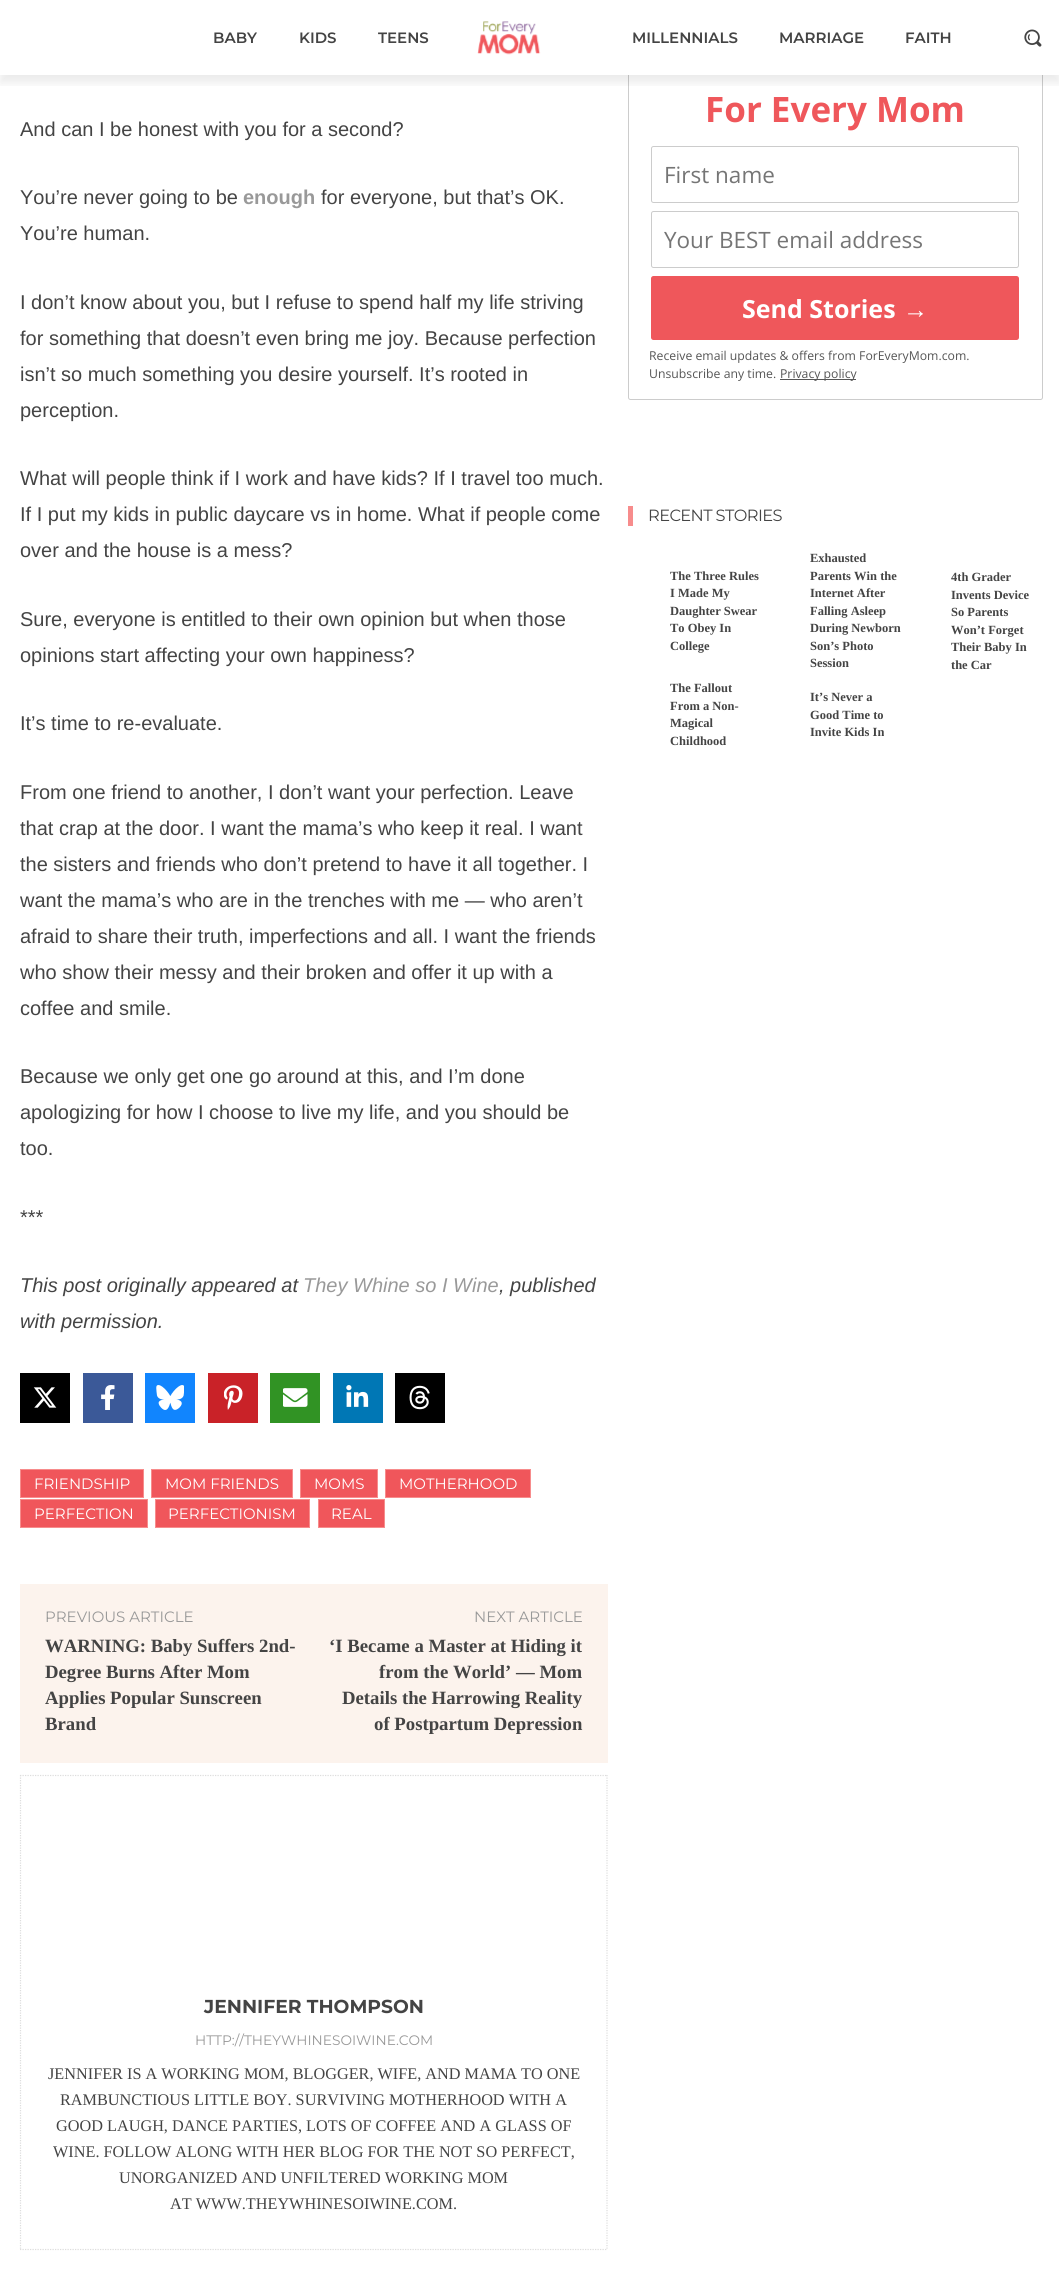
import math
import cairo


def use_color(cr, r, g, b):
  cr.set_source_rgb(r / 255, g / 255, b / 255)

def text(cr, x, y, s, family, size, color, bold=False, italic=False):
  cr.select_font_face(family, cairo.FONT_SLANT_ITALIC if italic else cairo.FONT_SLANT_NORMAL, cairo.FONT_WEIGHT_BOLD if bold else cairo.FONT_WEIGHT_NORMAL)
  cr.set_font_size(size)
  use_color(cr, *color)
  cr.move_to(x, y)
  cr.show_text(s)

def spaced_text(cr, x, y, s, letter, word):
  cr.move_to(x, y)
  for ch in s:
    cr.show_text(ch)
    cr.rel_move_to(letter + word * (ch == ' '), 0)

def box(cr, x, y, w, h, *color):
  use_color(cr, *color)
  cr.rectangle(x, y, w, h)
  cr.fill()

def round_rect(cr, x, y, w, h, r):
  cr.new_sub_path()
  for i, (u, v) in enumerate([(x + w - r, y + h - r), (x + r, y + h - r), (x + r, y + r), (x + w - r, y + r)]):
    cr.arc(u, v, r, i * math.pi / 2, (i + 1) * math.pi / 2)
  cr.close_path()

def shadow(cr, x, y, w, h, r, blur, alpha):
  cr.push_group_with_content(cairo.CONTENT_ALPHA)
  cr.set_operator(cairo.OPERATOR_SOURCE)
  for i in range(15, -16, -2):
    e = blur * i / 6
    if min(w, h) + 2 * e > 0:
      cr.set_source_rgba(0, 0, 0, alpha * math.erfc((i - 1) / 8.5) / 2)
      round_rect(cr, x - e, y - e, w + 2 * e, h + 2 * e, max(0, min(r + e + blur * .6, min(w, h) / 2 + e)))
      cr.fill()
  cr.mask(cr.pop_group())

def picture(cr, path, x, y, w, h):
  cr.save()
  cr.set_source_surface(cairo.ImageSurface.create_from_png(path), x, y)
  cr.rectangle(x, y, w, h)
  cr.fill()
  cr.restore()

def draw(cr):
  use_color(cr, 255, 255, 255)
  cr.paint()
  picture(cr, "img_01.png", 477, 21, 64, 34)
  round_rect(cr, 628.5, 44.5, 414, 355, 2)
  use_color(cr, 204, 204, 204)
  cr.set_line_width(1)
  cr.stroke()
  box(cr, 628, 44, 415, 31, 255, 255, 255)
  cr.save()
  cr.rectangle(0, 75, 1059, 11)
  cr.clip()
  use_color(cr, 0, 0, 0)
  shadow(cr, 0, 8, 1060, 75, 0, 5, 0.08)
  cr.restore()
  picture(cr, "img_02.png", 1024, 29, 18, 18)
  box(cr, 20, 1373, 50, 50, 0, 0, 0)
  picture(cr, "img_03.png", 33, 1387, 24, 21)
  box(cr, 83, 1373, 50, 50, 59, 89, 152)
  picture(cr, "img_04.png", 101, 1385, 14, 25)
  box(cr, 145, 1373, 50, 50, 17, 133, 254)
  picture(cr, "img_05.png", 156, 1385, 28, 25)
  box(cr, 208, 1373, 50, 50, 201, 34, 40)
  picture(cr, "img_06.png", 224, 1385, 19, 25)
  box(cr, 270, 1373, 50, 50, 49, 147, 36)
  picture(cr, "img_07.png", 283, 1388, 25, 19)
  box(cr, 333, 1373, 50, 50, 0, 119, 181)
  picture(cr, "img_08.png", 346, 1385, 23, 22)
  box(cr, 395, 1373, 50, 50, 0, 0, 0)
  picture(cr, "img_09.png", 409, 1385, 21, 25)
  use_color(cr, 240, 86, 91)
  cr.rectangle(20.5, 1469.5, 123, 28)
  cr.fill_preserve()
  use_color(cr, 247, 140, 140)
  cr.stroke()
  use_color(cr, 240, 86, 91)
  cr.rectangle(151.5, 1469.5, 141, 28)
  cr.fill_preserve()
  use_color(cr, 247, 140, 140)
  cr.stroke()
  use_color(cr, 240, 86, 91)
  cr.rectangle(300.5, 1469.5, 77, 28)
  cr.fill_preserve()
  use_color(cr, 247, 140, 140)
  cr.stroke()
  use_color(cr, 240, 86, 91)
  cr.rectangle(385.5, 1469.5, 145, 28)
  cr.fill_preserve()
  use_color(cr, 247, 140, 140)
  cr.stroke()
  use_color(cr, 240, 86, 91)
  cr.rectangle(20.5, 1499.5, 127, 28)
  cr.fill_preserve()
  use_color(cr, 247, 140, 140)
  cr.stroke()
  use_color(cr, 240, 86, 91)
  cr.rectangle(155.5, 1499.5, 154, 28)
  cr.fill_preserve()
  use_color(cr, 247, 140, 140)
  cr.stroke()
  use_color(cr, 240, 86, 91)
  cr.rectangle(318.5, 1499.5, 66, 28)
  cr.fill_preserve()
  use_color(cr, 247, 140, 140)
  cr.stroke()
  box(cr, 20, 1584, 588, 179, 252, 243, 237)
  cr.new_path()
  cr.move_to(20, 1775.5)
  cr.line_to(607.5, 1775.5)
  use_color(cr, 221, 221, 221)
  cr.set_line_width(1.2)
  cr.set_dash([1.25, 1.25])
  cr.stroke()
  cr.new_path()
  cr.move_to(607, 1775)
  cr.line_to(607, 2250)
  cr.stroke()
  cr.new_path()
  cr.move_to(20, 2249.5)
  cr.line_to(607.5, 2249.5)
  cr.stroke()
  cr.new_path()
  cr.move_to(20.5, 1775)
  cr.line_to(20.5, 2250)
  cr.stroke()
  round_rect(cr, 651.5, 146.5, 367, 56, 2)
  use_color(cr, 204, 204, 204)
  cr.set_line_width(1)
  cr.set_dash([])
  cr.stroke()
  round_rect(cr, 651.5, 211.5, 367, 56, 2)
  cr.stroke()
  use_color(cr, 239, 87, 91)
  round_rect(cr, 651, 276, 368, 64, 2.5)
  cr.fill()
  box(cr, 780, 379, 76, 1, 85, 85, 85)
  box(cr, 628, 506, 5, 20, 247, 140, 140)
  text(cr, 213, 43, "BABY", "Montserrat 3 Thin", 15, (68, 68, 68))
  text(cr, 299, 43, "KIDS", "Montserrat 3 Thin", 15, (68, 68, 68))
  text(cr, 378, 43, "TEENS", "Montserrat 3 Thin", 15, (68, 68, 68))
  text(cr, 632, 43, "MILLENNIALS", "Montserrat 3 Thin", 15, (68, 68, 68))
  text(cr, 779, 43, "MARRIAGE", "Montserrat 3 Thin", 15, (68, 68, 68))
  text(cr, 905, 43, "FAITH", "Montserrat 3 Thin", 15, (68, 68, 68))
  text(cr, 20, 136, "And can I be honest with you for a second?", "Liberation Sans", 20, (68, 68, 68))
  text(cr, 20, 204, "You’re never going to be", "Liberation Sans", 20, (68, 68, 68))
  text(cr, 243, 204, "enough", "Liberation Sans", 20, (153, 153, 153), bold=True)
  text(cr, 321, 204, "for everyone, but that’s OK.", "Liberation Sans", 20, (68, 68, 68))
  text(cr, 20, 240, "You’re human.", "Liberation Sans", 20, (68, 68, 68))
  text(cr, 20, 309, "I don’t know about you, but I refuse to spend half my life striving", "Liberation Sans", 20, (68, 68, 68))
  text(cr, 20, 345, "for something that doesn’t even bring me joy. Because perfection", "Liberation Sans", 20, (68, 68, 68))
  text(cr, 20, 381, "isn’t so much something you desire yourself. It’s rooted in", "Liberation Sans", 20, (68, 68, 68))
  text(cr, 20, 417, "perception.", "Liberation Sans", 20, (68, 68, 68))
  text(cr, 20, 485, "What will people think if I work and have kids? If I travel too much.", "Liberation Sans", 20, (68, 68, 68))
  text(cr, 20, 521, "If I put my kids in public daycare vs in home. What if people come", "Liberation Sans", 20, (68, 68, 68))
  text(cr, 20, 557, "over and the house is a mess?", "Liberation Sans", 20, (68, 68, 68))
  text(cr, 20, 626, "Sure, everyone is entitled to their own opinion but when those", "Liberation Sans", 20, (68, 68, 68))
  text(cr, 20, 662, "opinions start affecting your own happiness?", "Liberation Sans", 20, (68, 68, 68))
  text(cr, 20, 730, "It’s time to re-evaluate.", "Liberation Sans", 20, (68, 68, 68))
  text(cr, 20, 799, "From one friend to another, I don’t want your perfection. Leave", "Liberation Sans", 20, (68, 68, 68))
  text(cr, 20, 835, "that crap at the door. I want the mama’s who keep it real. I want", "Liberation Sans", 20, (68, 68, 68))
  text(cr, 20, 871, "the sisters and friends who don’t pretend to have it all together. I", "Liberation Sans", 20, (68, 68, 68))
  text(cr, 20, 907, "want the mama’s who are in the trenches with me — who aren’t", "Liberation Sans", 20, (68, 68, 68))
  text(cr, 20, 943, "afraid to share their truth, imperfections and all. I want the friends", "Liberation Sans", 20, (68, 68, 68))
  text(cr, 20, 979, "who show their messy and their broken and offer it up with a", "Liberation Sans", 20, (68, 68, 68))
  text(cr, 20, 1015, "coffee and smile.", "Liberation Sans", 20, (68, 68, 68))
  text(cr, 20, 1083, "Because we only get one go around at this, and I’m done", "Liberation Sans", 20, (68, 68, 68))
  text(cr, 20, 1119, "apologizing for how I choose to live my life, and you should be", "Liberation Sans", 20, (68, 68, 68))
  text(cr, 20, 1155, "too.", "Liberation Sans", 20, (68, 68, 68))
  text(cr, 20, 1224, "***", "Liberation Sans", 20, (68, 68, 68))
  text(cr, 20, 1292, "This post originally appeared at", "Liberation Sans", 20, (68, 68, 68), italic=True)
  text(cr, 303, 1292, "They Whine so I Wine", "Liberation Sans", 20, (153, 153, 153), italic=True)
  text(cr, 499, 1292, ", published", "Liberation Sans", 20, (68, 68, 68), italic=True)
  text(cr, 20, 1328, "with permission.", "Liberation Sans", 20, (68, 68, 68), italic=True)
  text(cr, 34, 1489, "FRIENDSHIP", "Montserrat Thin", 15, (255, 255, 255))
  text(cr, 165, 1489, "MOM FRIENDS", "Montserrat Thin", 15, (255, 255, 255))
  text(cr, 314, 1489, "MOMS", "Montserrat Thin", 15, (255, 255, 255))
  text(cr, 399, 1489, "MOTHERHOOD", "Montserrat Thin", 15, (255, 255, 255))
  text(cr, 34, 1519, "PERFECTION", "Montserrat Thin", 15, (255, 255, 255))
  text(cr, 168, 1519, "PERFECTIONISM", "Montserrat Thin", 15, (255, 255, 255))
  text(cr, 331, 1519, "REAL", "Montserrat Thin", 15, (255, 255, 255))
  text(cr, 45, 1622, "PREVIOUS ARTICLE", "Montserrat Thin", 15, (153, 153, 153))
  text(cr, 45, 1652, "WARNING: Baby Suffers 2nd-", "Liberation Serif", 18.75, (68, 68, 68), bold=True)
  text(cr, 45, 1678, "Degree Burns After Mom", "Liberation Serif", 18.75, (68, 68, 68), bold=True)
  text(cr, 45, 1704, "Applies Popular Sunscreen", "Liberation Serif", 18.75, (68, 68, 68), bold=True)
  text(cr, 45, 1730, "Brand", "Liberation Serif", 18.75, (68, 68, 68), bold=True)
  text(cr, 474, 1622, "NEXT ARTICLE", "Montserrat Thin", 15, (153, 153, 153))
  text(cr, 329, 1652, "‘I Became a Master at Hiding it", "Liberation Serif", 18.75, (68, 68, 68), bold=True)
  text(cr, 379, 1678, "from the World’ — Mom", "Liberation Serif", 18.75, (68, 68, 68), bold=True)
  text(cr, 342, 1704, "Details the Harrowing Reality", "Liberation Serif", 18.75, (68, 68, 68), bold=True)
  text(cr, 374, 1730, "of Postpartum Depression", "Liberation Serif", 18.75, (68, 68, 68), bold=True)
  text(cr, 204, 2013, "JENNIFER THOMPSON", "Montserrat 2 Thin", 18.75, (68, 68, 68))
  text(cr, 195, 2045, "HTTP://THEYWHINESOIWINE.COM", "Montserrat Thin", 13.75, (153, 153, 153))
  text(cr, 48, 2079, "JENNIFER IS A WORKING MOM, BLOGGER, WIFE, AND MAMA TO ONE", "Liberation Serif", 16.25, (68, 68, 68))
  text(cr, 60, 2105, "RAMBUNCTIOUS LITTLE BOY. SURVIVING MOTHERHOOD WITH A", "Liberation Serif", 16.25, (68, 68, 68))
  text(cr, 56, 2131, "GOOD LAUGH, DANCE PARTIES, LOTS OF COFFEE AND A GLASS OF", "Liberation Serif", 16.25, (68, 68, 68))
  text(cr, 53, 2157, "WINE. FOLLOW ALONG WITH HER BLOG FOR THE NOT SO PERFECT,", "Liberation Serif", 16.25, (68, 68, 68))
  text(cr, 119, 2183, "UNORGANIZED AND UNFILTERED WORKING MOM", "Liberation Serif", 16.25, (68, 68, 68))
  text(cr, 170, 2209, "AT WWW.THEYWHINESOIWINE.COM.", "Liberation Serif", 16.25, (68, 68, 68))
  text(cr, 705, 122, "For Every Mom", "Open Sans", 35, (239, 87, 91), bold=True)
  text(cr, 664, 183, "First name", "Open Sans", 22.5, (117, 117, 117))
  text(cr, 664, 248, "Your BEST email address", "Open Sans", 22.5, (117, 117, 117))
  text(cr, 742, 318, "Send Stories", "Open Sans", 25, (255, 255, 255), bold=True)
  text(cr, 903, 318, "→", "Liberation Sans", 25, (255, 255, 255), bold=True)
  text(cr, 649, 360, "Receive email updates & offers from ForEveryMom.com.", "Open Sans", 12.25, (85, 85, 85))
  text(cr, 649, 378, "Unsubscribe any time.", "Open Sans", 12.25, (85, 85, 85))
  text(cr, 780, 378, "Privacy policy", "Open Sans", 12.25, (85, 85, 85))
  cr.select_font_face("Montserrat Thin")
  cr.set_font_size(16.25)
  use_color(cr, 68, 68, 68)
  spaced_text(cr, 648, 521, "RECENT STORIES", -0.6, 0)
  text(cr, 670, 580, "The Three Rules", "Liberation Serif", 12.5, (68, 68, 68), bold=True)
  text(cr, 670, 597, "I Made My", "Liberation Serif", 12.5, (68, 68, 68), bold=True)
  text(cr, 670, 615, "Daughter Swear", "Liberation Serif", 12.5, (68, 68, 68), bold=True)
  text(cr, 670, 632, "To Obey In", "Liberation Serif", 12.5, (68, 68, 68), bold=True)
  text(cr, 670, 650, "College", "Liberation Serif", 12.5, (68, 68, 68), bold=True)
  text(cr, 810, 562, "Exhausted", "Liberation Serif", 12.5, (68, 68, 68), bold=True)
  text(cr, 810, 580, "Parents Win the", "Liberation Serif", 12.5, (68, 68, 68), bold=True)
  text(cr, 810, 597, "Internet After", "Liberation Serif", 12.5, (68, 68, 68), bold=True)
  text(cr, 810, 615, "Falling Asleep", "Liberation Serif", 12.5, (68, 68, 68), bold=True)
  text(cr, 810, 632, "During Newborn", "Liberation Serif", 12.5, (68, 68, 68), bold=True)
  text(cr, 810, 650, "Son’s Photo", "Liberation Serif", 12.5, (68, 68, 68), bold=True)
  text(cr, 810, 667, "Session", "Liberation Serif", 12.5, (68, 68, 68), bold=True)
  text(cr, 951, 581, "4th Grader", "Liberation Serif", 12.5, (68, 68, 68), bold=True)
  text(cr, 951, 599, "Invents Device", "Liberation Serif", 12.5, (68, 68, 68), bold=True)
  text(cr, 951, 616, "So Parents", "Liberation Serif", 12.5, (68, 68, 68), bold=True)
  text(cr, 951, 634, "Won’t Forget", "Liberation Serif", 12.5, (68, 68, 68), bold=True)
  text(cr, 951, 651, "Their Baby In", "Liberation Serif", 12.5, (68, 68, 68), bold=True)
  text(cr, 951, 669, "the Car", "Liberation Serif", 12.5, (68, 68, 68), bold=True)
  text(cr, 670, 692, "The Fallout", "Liberation Serif", 12.5, (68, 68, 68), bold=True)
  text(cr, 670, 710, "From a Non-", "Liberation Serif", 12.5, (68, 68, 68), bold=True)
  text(cr, 670, 727, "Magical", "Liberation Serif", 12.5, (68, 68, 68), bold=True)
  text(cr, 670, 745, "Childhood", "Liberation Serif", 12.5, (68, 68, 68), bold=True)
  text(cr, 810, 701, "It’s Never a", "Liberation Serif", 12.5, (68, 68, 68), bold=True)
  text(cr, 810, 719, "Good Time to", "Liberation Serif", 12.5, (68, 68, 68), bold=True)
  text(cr, 810, 736, "Invite Kids In", "Liberation Serif", 12.5, (68, 68, 68), bold=True)


surface = cairo.ImageSurface(cairo.FORMAT_RGB24, 1059, 2278)
cr = cairo.Context(surface)
options = cairo.FontOptions()
options.set_hint_metrics(cairo.HINT_METRICS_OFF)
options.set_hint_style(cairo.HINT_STYLE_NONE)
cr.set_font_options(options)
cr.set_miter_limit(4)
draw(cr)
surface.write_to_png("out.png")
